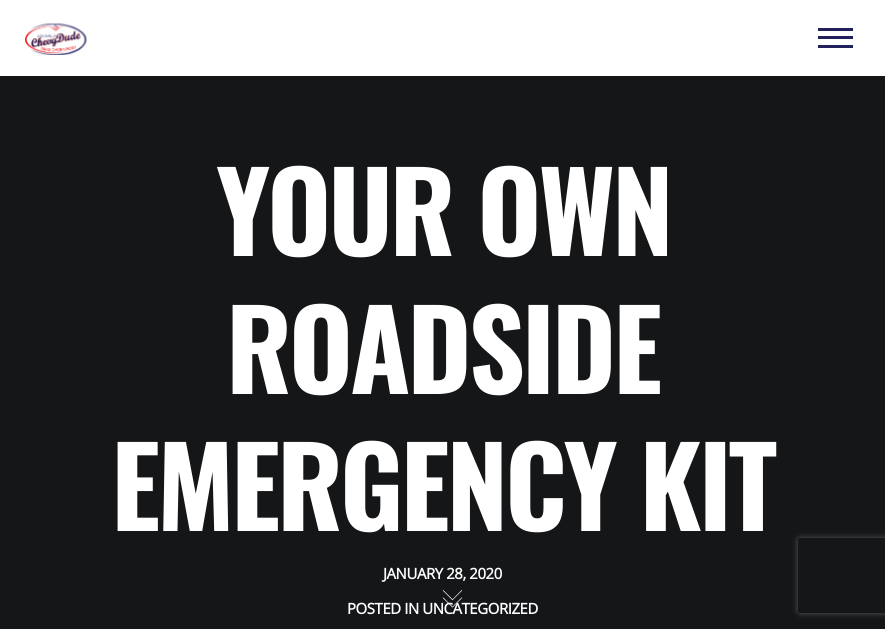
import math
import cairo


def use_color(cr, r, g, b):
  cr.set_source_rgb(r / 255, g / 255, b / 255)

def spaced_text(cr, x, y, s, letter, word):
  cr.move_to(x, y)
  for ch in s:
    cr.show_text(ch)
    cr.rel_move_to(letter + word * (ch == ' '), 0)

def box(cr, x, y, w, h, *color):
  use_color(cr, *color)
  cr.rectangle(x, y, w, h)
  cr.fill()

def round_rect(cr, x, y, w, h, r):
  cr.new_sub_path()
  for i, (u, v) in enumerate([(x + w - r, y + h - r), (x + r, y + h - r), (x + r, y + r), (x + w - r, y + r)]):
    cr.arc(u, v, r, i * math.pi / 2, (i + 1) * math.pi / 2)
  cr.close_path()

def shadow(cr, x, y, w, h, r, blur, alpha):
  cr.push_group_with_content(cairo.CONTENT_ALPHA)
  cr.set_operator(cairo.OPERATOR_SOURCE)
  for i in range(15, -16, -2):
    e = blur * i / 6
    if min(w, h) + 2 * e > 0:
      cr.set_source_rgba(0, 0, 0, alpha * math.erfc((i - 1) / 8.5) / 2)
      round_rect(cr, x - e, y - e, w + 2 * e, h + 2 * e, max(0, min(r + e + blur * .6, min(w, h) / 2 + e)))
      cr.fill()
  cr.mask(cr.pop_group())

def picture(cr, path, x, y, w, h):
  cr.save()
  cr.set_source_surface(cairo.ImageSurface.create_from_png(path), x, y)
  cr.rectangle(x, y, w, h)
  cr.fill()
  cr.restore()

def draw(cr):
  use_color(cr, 20, 22, 24)
  cr.paint()
  box(cr, 0, 0, 885, 76, 255, 255, 255)
  picture(cr, "img_01.png", 25, 23, 62, 32)
  box(cr, 818, 36, 35, 3, 33, 34, 91)
  box(cr, 818, 28, 35, 3, 33, 34, 91)
  box(cr, 818, 45, 35, 3, 33, 34, 91)
  cr.save()
  cr.set_fill_rule(cairo.FILL_RULE_EVEN_ODD)
  cr.new_path()
  cr.move_to(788, 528)
  cr.line_to(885, 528)
  cr.line_to(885, 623)
  cr.line_to(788, 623)
  cr.close_path()
  cr.move_to(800.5, 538)
  cr.line_to(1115.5, 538)
  cr.curve_to(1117, 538, 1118, 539, 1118, 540.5)
  cr.line_to(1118, 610.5)
  cr.curve_to(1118, 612, 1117, 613, 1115.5, 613)
  cr.line_to(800.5, 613)
  cr.curve_to(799, 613, 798, 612, 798, 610.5)
  cr.line_to(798, 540.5)
  cr.curve_to(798, 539, 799, 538, 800.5, 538)
  cr.close_path()
  cr.clip()
  use_color(cr, 90, 91, 92)
  shadow(cr, 798, 538, 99, 75, 2.5, 3, 1)
  cr.restore()
  cr.select_font_face("Oswald", cairo.FONT_SLANT_NORMAL, cairo.FONT_WEIGHT_BOLD)
  cr.set_font_size(110)
  use_color(cr, 255, 255, 255)
  spaced_text(cr, 216, 256, "YOUR OWN", -3.25, 0)
  spaced_text(cr, 226, 394, "ROADSIDE", -3.25, 0)
  spaced_text(cr, 111, 531, "EMERGENCY KIT", -3.25, 0)
  cr.select_font_face("Open Sans", cairo.FONT_SLANT_NORMAL, cairo.FONT_WEIGHT_BOLD)
  cr.set_font_size(15)
  spaced_text(cr, 383, 579, "JANUARY 28, 2020", -0.45, 0)
  spaced_text(cr, 347, 614, "POSTED IN UNCATEGORIZED", -0.45, 0)
  picture(cr, "img_02.png", 442, 590, 21, 18)


surface = cairo.ImageSurface(cairo.FORMAT_RGB24, 885, 629)
cr = cairo.Context(surface)
options = cairo.FontOptions()
options.set_hint_metrics(cairo.HINT_METRICS_OFF)
options.set_hint_style(cairo.HINT_STYLE_NONE)
cr.set_font_options(options)
cr.set_miter_limit(4)
draw(cr)
surface.write_to_png("out.png")
